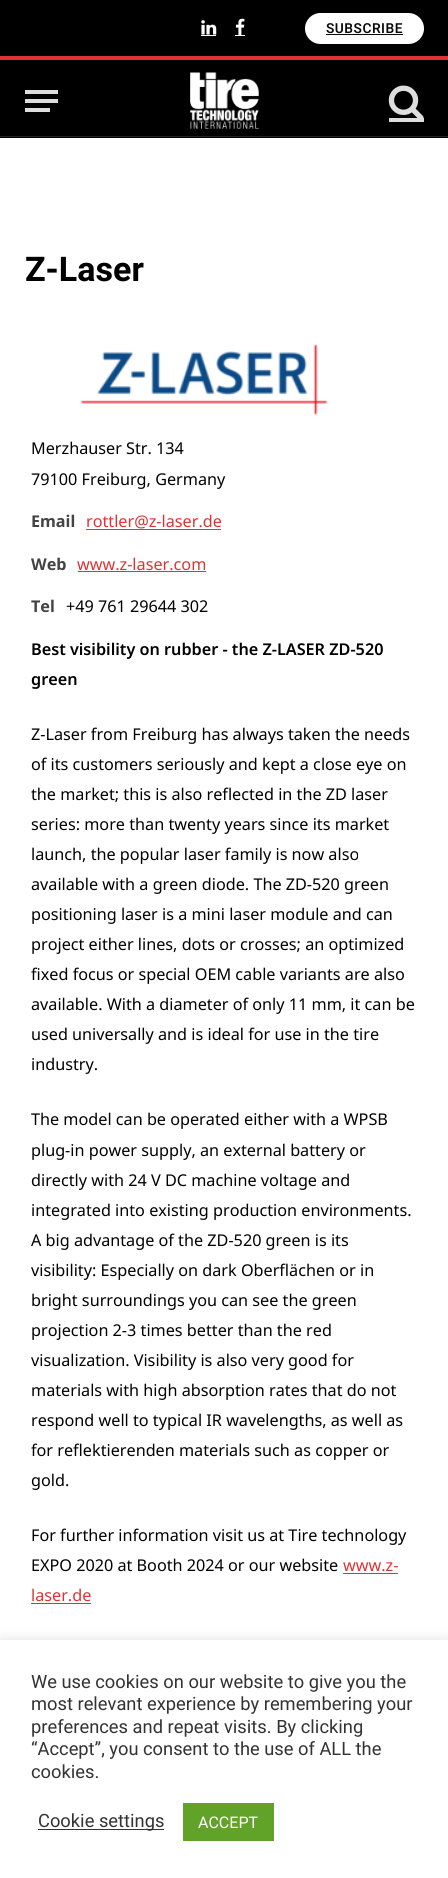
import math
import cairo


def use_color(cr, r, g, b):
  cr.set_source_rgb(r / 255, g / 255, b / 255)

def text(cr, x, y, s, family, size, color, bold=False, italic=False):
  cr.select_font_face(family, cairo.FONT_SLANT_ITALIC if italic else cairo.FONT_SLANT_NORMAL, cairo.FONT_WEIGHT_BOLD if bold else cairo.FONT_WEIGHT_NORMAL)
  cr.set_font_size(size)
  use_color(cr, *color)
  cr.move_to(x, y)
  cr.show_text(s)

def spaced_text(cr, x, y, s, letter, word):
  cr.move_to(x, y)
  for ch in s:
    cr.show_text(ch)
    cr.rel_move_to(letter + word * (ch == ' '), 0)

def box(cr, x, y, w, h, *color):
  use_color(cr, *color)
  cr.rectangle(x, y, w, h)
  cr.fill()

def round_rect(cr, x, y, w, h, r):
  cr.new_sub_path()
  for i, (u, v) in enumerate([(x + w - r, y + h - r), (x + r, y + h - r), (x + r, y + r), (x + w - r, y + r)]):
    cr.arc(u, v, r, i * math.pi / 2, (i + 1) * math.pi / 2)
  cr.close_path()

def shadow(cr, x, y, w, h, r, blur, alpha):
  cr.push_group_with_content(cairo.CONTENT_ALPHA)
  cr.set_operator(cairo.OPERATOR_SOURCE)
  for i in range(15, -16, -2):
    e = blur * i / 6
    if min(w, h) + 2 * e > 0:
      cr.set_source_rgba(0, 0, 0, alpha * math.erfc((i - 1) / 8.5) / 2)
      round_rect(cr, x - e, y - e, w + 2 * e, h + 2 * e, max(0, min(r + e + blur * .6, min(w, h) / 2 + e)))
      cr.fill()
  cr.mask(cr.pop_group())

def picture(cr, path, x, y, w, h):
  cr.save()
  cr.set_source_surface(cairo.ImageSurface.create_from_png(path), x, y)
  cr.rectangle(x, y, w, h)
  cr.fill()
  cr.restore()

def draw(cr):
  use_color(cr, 255, 255, 255)
  cr.paint()
  box(cr, 0, 0, 448, 56, 0, 0, 0)
  picture(cr, "img_01.png", 201, 20, 16, 15)
  box(cr, 201, 35, 15, 1, 255, 255, 255)
  picture(cr, "img_02.png", 235, 18, 10, 17)
  box(cr, 235, 35, 10, 1, 255, 255, 255)
  round_rect(cr, 305, 13, 119, 31, 15.5)
  cr.fill()
  box(cr, 326, 34, 77, 1, 10, 10, 10)
  box(cr, 0, 60, 448, 78, 0, 0, 0)
  box(cr, 0, 56, 448, 4, 221, 51, 51)
  box(cr, 0, 136, 448, 1, 34, 34, 34)
  box(cr, 25, 108, 25, 4, 221, 221, 221)
  box(cr, 25, 90, 33, 4, 221, 221, 221)
  box(cr, 25, 99, 33, 4, 221, 221, 221)
  picture(cr, "img_03.png", 190, 72, 69, 57)
  picture(cr, "img_04.png", 388, 85, 36, 33)
  box(cr, 389, 118, 35, 4, 221, 221, 221)
  picture(cr, "img_05.png", 80, 344, 248, 71)
  box(cr, 86, 529, 135, 1, 221, 51, 51)
  box(cr, 78, 571, 128, 1, 221, 51, 51)
  box(cr, 343, 1573, 55, 1, 221, 51, 51)
  box(cr, 31, 1603, 60, 1, 221, 51, 51)
  use_color(cr, 172, 171, 171)
  shadow(cr, 0, 1639, 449, 239, 0, 6, 0.3)
  box(cr, 0, 1640, 448, 238, 255, 255, 255)
  box(cr, 38, 1829, 126, 1, 51, 51, 51)
  box(cr, 183, 1803, 91, 38, 97, 162, 41)
  cr.select_font_face("Heebo SemiBold")
  cr.set_font_size(13.75)
  use_color(cr, 10, 10, 10)
  spaced_text(cr, 326, 33, "SUBSCRIBE", 0.5, 0)
  text(cr, 25, 281, "Z-Laser", "Heebo", 34, (0, 0, 0), bold=True)
  text(cr, 31, 454, "Merzhauser Str. 134", "Noto Sans", 16.2, (0, 0, 0))
  text(cr, 31, 485, "79100 Freiburg, Germany", "Noto Sans", 16.2, (0, 0, 0))
  text(cr, 31, 527, "Email", "Noto Sans", 16.2, (68, 68, 68), bold=True)
  text(cr, 86, 527, "rottler@z-laser.de", "Noto Sans", 16.2, (221, 51, 51))
  text(cr, 31, 570, "Web", "Noto Sans", 16.2, (68, 68, 68), bold=True)
  text(cr, 77, 570, "www.z-laser.com", "Noto Sans", 16.2, (221, 51, 51))
  text(cr, 31, 612, "Tel", "Noto Sans", 16.2, (68, 68, 68), bold=True)
  text(cr, 66, 612, "+49 761 29644 302", "Noto Sans", 16.2, (0, 0, 0))
  text(cr, 31, 655, "Best visibility on rubber - the Z-LASER ZD-520", "Noto Sans SemiBold", 16.2, (0, 0, 0))
  text(cr, 31, 685, "green", "Noto Sans SemiBold", 16.2, (0, 0, 0))
  text(cr, 31, 740, "Z-Laser from Freiburg has always taken the needs", "Noto Sans", 16.2, (0, 0, 0))
  text(cr, 31, 770, "of its customers seriously and kept a close eye on", "Noto Sans", 16.2, (0, 0, 0))
  text(cr, 31, 800, "the market; this is also reflected in the ZD laser", "Noto Sans", 16.2, (0, 0, 0))
  text(cr, 31, 830, "series: more than twenty years since its market", "Noto Sans", 16.2, (0, 0, 0))
  text(cr, 31, 860, "launch, the popular laser family is now also", "Noto Sans", 16.2, (0, 0, 0))
  text(cr, 31, 890, "available with a green diode. The ZD-520 green", "Noto Sans", 16.2, (0, 0, 0))
  text(cr, 31, 920, "positioning laser is a mini laser module and can", "Noto Sans", 16.2, (0, 0, 0))
  text(cr, 31, 950, "project either lines, dots or crosses; an optimized", "Noto Sans", 16.2, (0, 0, 0))
  text(cr, 31, 980, "fixed focus or special OEM cable variants are also", "Noto Sans", 16.2, (0, 0, 0))
  text(cr, 31, 1010, "available. With a diameter of only 11 mm, it can be", "Noto Sans", 16.2, (0, 0, 0))
  text(cr, 31, 1040, "used universally and is ideal for use in the tire", "Noto Sans", 16.2, (0, 0, 0))
  text(cr, 31, 1070, "industry.", "Noto Sans", 16.2, (0, 0, 0))
  text(cr, 31, 1125, "The model can be operated either with a WPSB", "Noto Sans", 16.2, (0, 0, 0))
  text(cr, 31, 1156, "plug-in power supply, an external battery or", "Noto Sans", 16.2, (0, 0, 0))
  text(cr, 31, 1186, "directly with 24 V DC machine voltage and", "Noto Sans", 16.2, (0, 0, 0))
  text(cr, 31, 1216, "integrated into existing production environments.", "Noto Sans", 16.2, (0, 0, 0))
  text(cr, 31, 1246, "A big advantage of the ZD-520 green is its", "Noto Sans", 16.2, (0, 0, 0))
  text(cr, 31, 1276, "visibility: Especially on dark Oberﬂächen or in", "Noto Sans", 16.2, (0, 0, 0))
  text(cr, 31, 1306, "bright surroundings you can see the green", "Noto Sans", 16.2, (0, 0, 0))
  text(cr, 31, 1336, "projection 2-3 times better than the red", "Noto Sans", 16.2, (0, 0, 0))
  text(cr, 31, 1366, "visualization. Visibility is also very good for", "Noto Sans", 16.2, (0, 0, 0))
  text(cr, 31, 1396, "materials with high absorption rates that do not", "Noto Sans", 16.2, (0, 0, 0))
  text(cr, 31, 1426, "respond well to typical IR wavelengths, as well as", "Noto Sans", 16.2, (0, 0, 0))
  text(cr, 31, 1456, "for reﬂektierenden materials such as copper or", "Noto Sans", 16.2, (0, 0, 0))
  text(cr, 31, 1486, "gold.", "Noto Sans", 16.2, (0, 0, 0))
  text(cr, 31, 1541, "For further information visit us at Tire technology", "Noto Sans", 16.2, (0, 0, 0))
  text(cr, 31, 1571, "EXPO 2020 at Booth 2024 or our website", "Noto Sans", 16.2, (0, 0, 0))
  text(cr, 343, 1571, "www.z-", "Noto Sans", 16.2, (221, 51, 51))
  text(cr, 31, 1601, "laser.de", "Noto Sans", 16.2, (221, 51, 51))
  text(cr, 31, 1688, "We use cookies on our website to give you the", "Heebo", 18.3, (51, 51, 51))
  text(cr, 31, 1710, "most relevant experience by remembering your", "Heebo", 18.3, (51, 51, 51))
  text(cr, 31, 1733, "preferences and repeat visits. By clicking", "Heebo", 18.3, (51, 51, 51))
  text(cr, 31, 1755, "“Accept”, you consent to the use of ALL the", "Heebo", 18.3, (51, 51, 51))
  text(cr, 31, 1778, "cookies.", "Heebo", 18.3, (51, 51, 51))
  text(cr, 38, 1827, "Cookie settings", "Heebo", 18.3, (51, 51, 51))
  text(cr, 198, 1828, "ACCEPT", "Heebo", 16, (255, 255, 255))


surface = cairo.ImageSurface(cairo.FORMAT_RGB24, 448, 1878)
cr = cairo.Context(surface)
options = cairo.FontOptions()
options.set_hint_metrics(cairo.HINT_METRICS_OFF)
options.set_hint_style(cairo.HINT_STYLE_NONE)
cr.set_font_options(options)
cr.set_miter_limit(4)
draw(cr)
surface.write_to_png("out.png")
